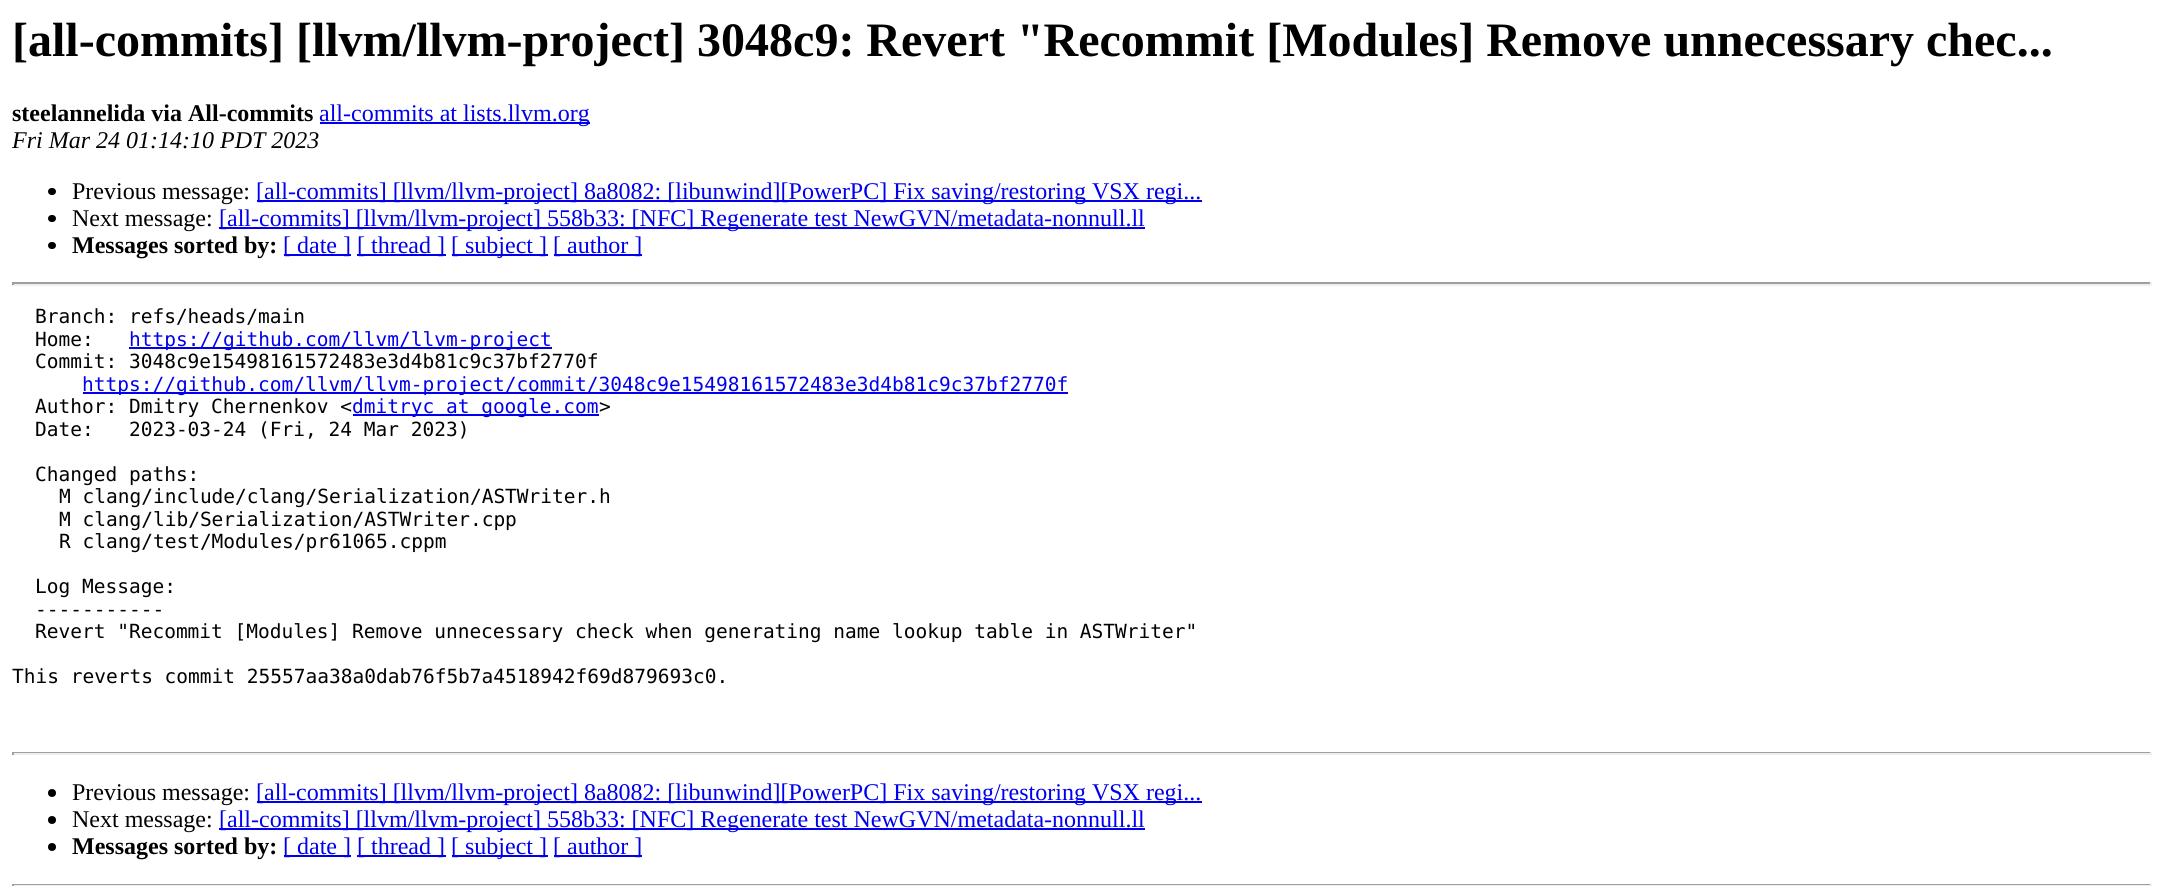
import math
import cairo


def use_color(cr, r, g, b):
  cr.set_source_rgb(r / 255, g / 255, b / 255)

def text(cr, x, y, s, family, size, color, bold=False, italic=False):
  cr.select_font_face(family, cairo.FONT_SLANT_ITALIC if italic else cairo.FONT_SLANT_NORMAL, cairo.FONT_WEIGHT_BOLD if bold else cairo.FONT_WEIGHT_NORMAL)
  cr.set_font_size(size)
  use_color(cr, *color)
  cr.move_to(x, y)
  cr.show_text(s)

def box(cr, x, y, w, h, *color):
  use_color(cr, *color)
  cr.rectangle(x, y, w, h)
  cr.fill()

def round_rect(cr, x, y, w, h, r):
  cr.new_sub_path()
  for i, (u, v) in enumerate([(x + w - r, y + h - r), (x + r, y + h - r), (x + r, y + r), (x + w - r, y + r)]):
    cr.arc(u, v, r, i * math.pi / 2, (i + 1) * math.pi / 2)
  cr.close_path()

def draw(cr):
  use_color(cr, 255, 255, 255)
  cr.paint()
  box(cr, 320, 122, 270, 2, 0, 0, 238)
  use_color(cr, 0, 0, 0)
  round_rect(cr, 48, 188, 8, 7, 3.5)
  cr.fill()
  box(cr, 257, 200, 945, 2, 0, 0, 238)
  use_color(cr, 0, 0, 0)
  round_rect(cr, 48, 215, 8, 7, 3.5)
  cr.fill()
  box(cr, 219, 227, 926, 2, 0, 0, 238)
  use_color(cr, 0, 0, 0)
  round_rect(cr, 48, 242, 8, 7, 3.5)
  cr.fill()
  box(cr, 284, 254, 67, 2, 0, 0, 238)
  box(cr, 357, 254, 89, 2, 0, 0, 238)
  box(cr, 452, 254, 96, 2, 0, 0, 238)
  box(cr, 554, 254, 88, 2, 0, 0, 238)
  box(cr, 12, 282, 2139, 2, 159, 159, 159)
  box(cr, 2150, 282, 2, 3, 238, 238, 238)
  box(cr, 12, 284, 2139, 2, 238, 238, 238)
  box(cr, 12, 282, 2, 3, 159, 159, 159)
  box(cr, 129, 347, 423, 2, 0, 0, 238)
  box(cr, 83, 392, 985, 2, 0, 0, 238)
  box(cr, 353, 414, 246, 2, 0, 0, 238)
  box(cr, 12, 752, 2139, 1, 159, 159, 159)
  box(cr, 2150, 752, 2, 3, 238, 238, 238)
  box(cr, 12, 753, 2139, 2, 238, 238, 238)
  box(cr, 12, 752, 2, 3, 159, 159, 159)
  use_color(cr, 0, 0, 0)
  cr.arc(52, 793, 4, 0, 2 * math.pi)
  cr.fill()
  box(cr, 257, 801, 945, 2, 0, 0, 238)
  use_color(cr, 0, 0, 0)
  cr.arc(52, 820, 4, 0, 2 * math.pi)
  cr.fill()
  box(cr, 219, 828, 926, 2, 0, 0, 238)
  use_color(cr, 0, 0, 0)
  cr.arc(52, 847, 4, 0, 2 * math.pi)
  cr.fill()
  box(cr, 284, 855, 67, 2, 0, 0, 238)
  box(cr, 357, 855, 89, 2, 0, 0, 238)
  box(cr, 452, 855, 96, 2, 0, 0, 238)
  box(cr, 554, 855, 88, 2, 0, 0, 238)
  box(cr, 12, 884, 2139, 1, 159, 159, 159)
  box(cr, 2150, 884, 2, 2, 238, 238, 238)
  box(cr, 12, 885, 2139, 1, 238, 238, 238)
  box(cr, 12, 885, 2, 1, 159, 159, 159)
  text(cr, 12, 56, "[all-commits] [llvm/llvm-project] 3048c9: Revert \"Recommit [Modules] Remove unnecessary chec...", "Liberation Serif", 48, (0, 0, 0), bold=True)
  text(cr, 12, 121, "steelannelida via All-commits", "Liberation Serif", 24, (0, 0, 0), bold=True)
  text(cr, 319, 121, "all-commits at lists.llvm.org", "Liberation Serif", 24, (0, 0, 238))
  text(cr, 12, 148, "Fri Mar 24 01:14:10 PDT 2023", "Liberation Serif", 24, (0, 0, 0), italic=True)
  text(cr, 72, 199, "Previous message:", "Liberation Serif", 24, (0, 0, 0))
  text(cr, 256, 199, "[all-commits] [llvm/llvm-project] 8a8082: [libunwind][PowerPC] Fix saving/restoring VSX regi...", "Liberation Serif", 24, (0, 0, 238))
  text(cr, 72, 226, "Next message:", "Liberation Serif", 24, (0, 0, 0))
  text(cr, 219, 226, "[all-commits] [llvm/llvm-project] 558b33: [NFC] Regenerate test NewGVN/metadata-nonnull.ll", "Liberation Serif", 24, (0, 0, 238))
  text(cr, 72, 253, "Messages sorted by:", "Liberation Serif", 24, (0, 0, 0), bold=True)
  text(cr, 283, 253, "[ date ]", "Liberation Serif", 24, (0, 0, 238))
  text(cr, 357, 253, "[ thread ]", "Liberation Serif", 24, (0, 0, 238))
  text(cr, 451, 253, "[ subject ]", "Liberation Serif", 24, (0, 0, 238))
  text(cr, 553, 253, "[ author ]", "Liberation Serif", 24, (0, 0, 238))
  text(cr, 35, 323, "Branch: refs/heads/main", "DejaVu Sans Mono", 19.5, (0, 0, 0))
  text(cr, 35, 346, "Home:", "DejaVu Sans Mono", 19.5, (0, 0, 0))
  text(cr, 129, 346, "https://github.com/llvm/llvm-project", "DejaVu Sans Mono", 19.5, (0, 0, 238))
  text(cr, 35, 368, "Commit: 3048c9e15498161572483e3d4b81c9c37bf2770f", "DejaVu Sans Mono", 19.5, (0, 0, 0))
  text(cr, 82, 391, "https://github.com/llvm/llvm-project/commit/3048c9e15498161572483e3d4b81c9c37bf2770f", "DejaVu Sans Mono", 19.5, (0, 0, 238))
  text(cr, 35, 413, "Author: Dmitry Chernenkov <", "DejaVu Sans Mono", 19.5, (0, 0, 0))
  text(cr, 352, 413, "dmitryc at google.com", "DejaVu Sans Mono", 19.5, (0, 0, 238))
  text(cr, 599, 413, ">", "DejaVu Sans Mono", 19.5, (0, 0, 0))
  text(cr, 35, 436, "Date:   2023-03-24 (Fri, 24 Mar 2023)", "DejaVu Sans Mono", 19.5, (0, 0, 0))
  text(cr, 35, 481, "Changed paths:", "DejaVu Sans Mono", 19.5, (0, 0, 0))
  text(cr, 59, 503, "M clang/include/clang/Serialization/ASTWriter.h", "DejaVu Sans Mono", 19.5, (0, 0, 0))
  text(cr, 59, 526, "M clang/lib/Serialization/ASTWriter.cpp", "DejaVu Sans Mono", 19.5, (0, 0, 0))
  text(cr, 59, 548, "R clang/test/Modules/pr61065.cppm", "DejaVu Sans Mono", 19.5, (0, 0, 0))
  text(cr, 35, 593, "Log Message:", "DejaVu Sans Mono", 19.5, (0, 0, 0))
  text(cr, 35, 616, "-----------", "DejaVu Sans Mono", 19.5, (0, 0, 0))
  text(cr, 35, 638, "Revert \"Recommit [Modules] Remove unnecessary check when generating name lookup table in ASTWriter\"", "DejaVu Sans Mono", 19.5, (0, 0, 0))
  text(cr, 12, 683, "This reverts commit 25557aa38a0dab76f5b7a4518942f69d879693c0.", "DejaVu Sans Mono", 19.5, (0, 0, 0))
  text(cr, 72, 800, "Previous message:", "Liberation Serif", 24, (0, 0, 0))
  text(cr, 256, 800, "[all-commits] [llvm/llvm-project] 8a8082: [libunwind][PowerPC] Fix saving/restoring VSX regi...", "Liberation Serif", 24, (0, 0, 238))
  text(cr, 72, 827, "Next message:", "Liberation Serif", 24, (0, 0, 0))
  text(cr, 219, 827, "[all-commits] [llvm/llvm-project] 558b33: [NFC] Regenerate test NewGVN/metadata-nonnull.ll", "Liberation Serif", 24, (0, 0, 238))
  text(cr, 72, 854, "Messages sorted by:", "Liberation Serif", 24, (0, 0, 0), bold=True)
  text(cr, 283, 854, "[ date ]", "Liberation Serif", 24, (0, 0, 238))
  text(cr, 357, 854, "[ thread ]", "Liberation Serif", 24, (0, 0, 238))
  text(cr, 451, 854, "[ subject ]", "Liberation Serif", 24, (0, 0, 238))
  text(cr, 553, 854, "[ author ]", "Liberation Serif", 24, (0, 0, 238))


surface = cairo.ImageSurface(cairo.FORMAT_RGB24, 2163, 886)
cr = cairo.Context(surface)
options = cairo.FontOptions()
options.set_hint_metrics(cairo.HINT_METRICS_OFF)
options.set_hint_style(cairo.HINT_STYLE_NONE)
cr.set_font_options(options)
cr.set_miter_limit(4)
draw(cr)
surface.write_to_png("out.png")
